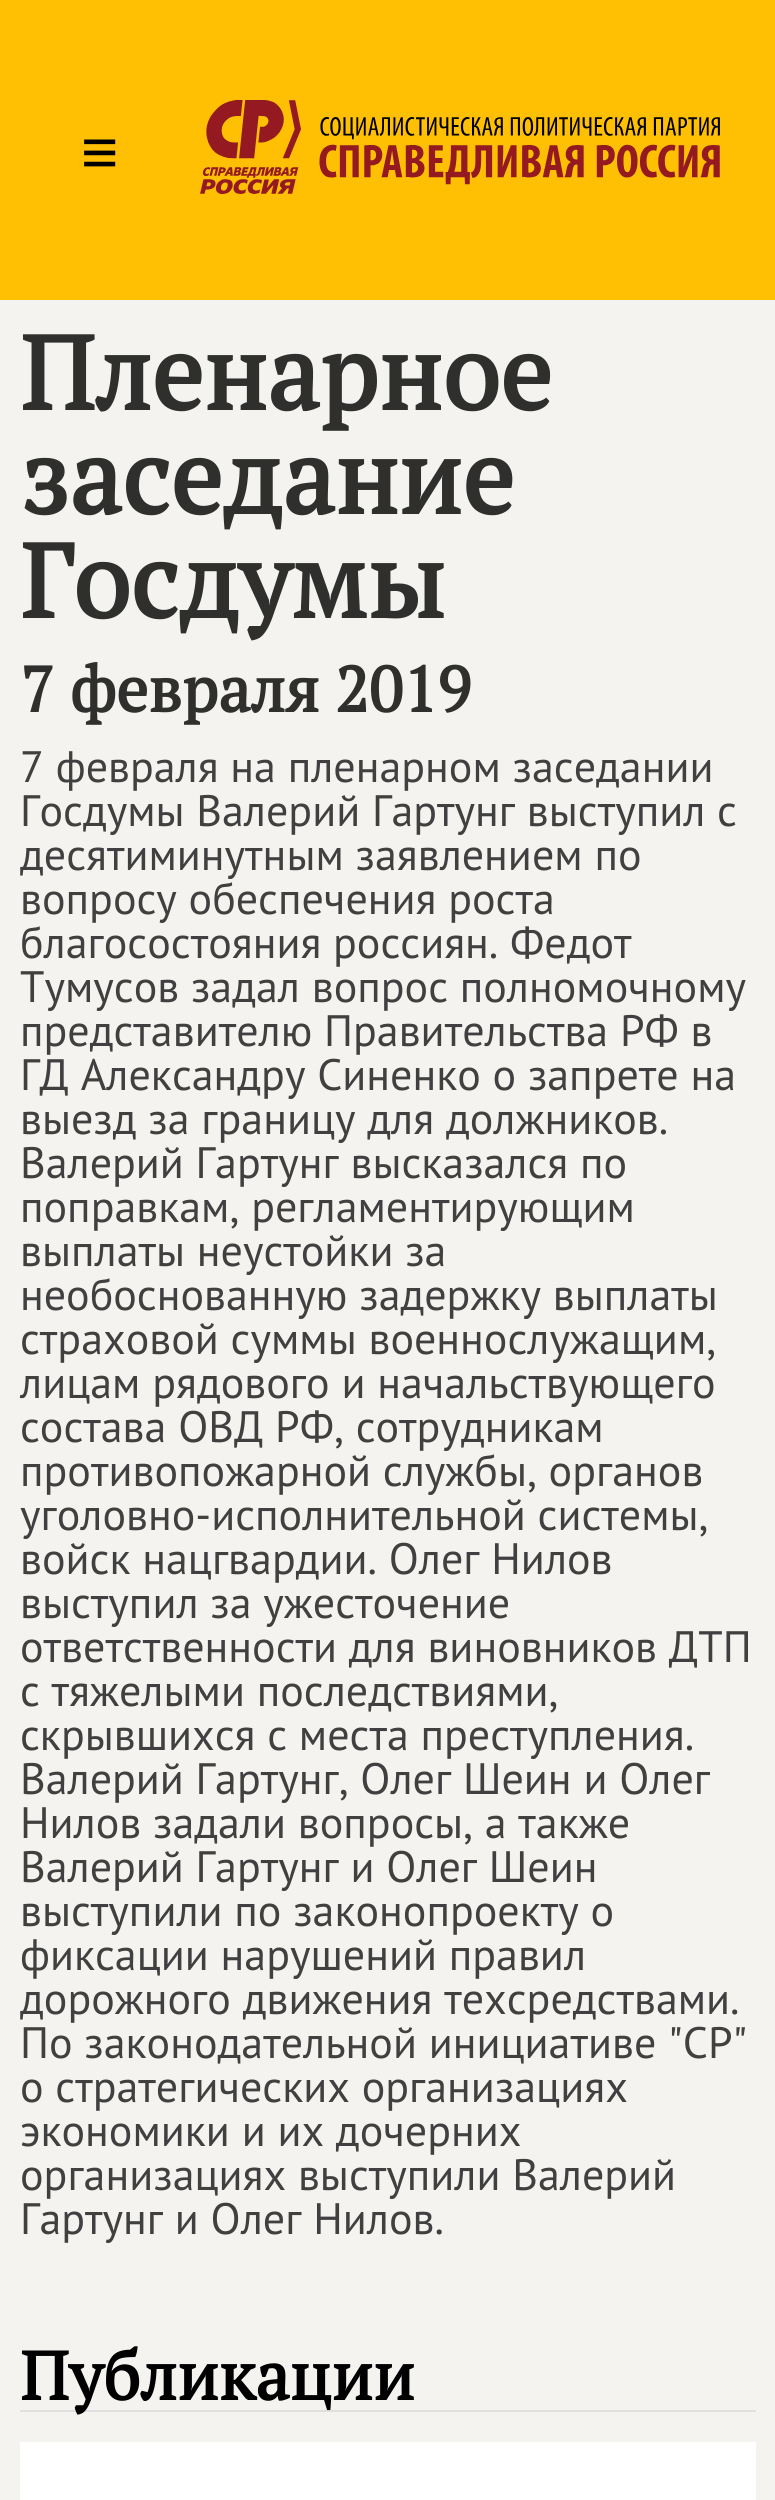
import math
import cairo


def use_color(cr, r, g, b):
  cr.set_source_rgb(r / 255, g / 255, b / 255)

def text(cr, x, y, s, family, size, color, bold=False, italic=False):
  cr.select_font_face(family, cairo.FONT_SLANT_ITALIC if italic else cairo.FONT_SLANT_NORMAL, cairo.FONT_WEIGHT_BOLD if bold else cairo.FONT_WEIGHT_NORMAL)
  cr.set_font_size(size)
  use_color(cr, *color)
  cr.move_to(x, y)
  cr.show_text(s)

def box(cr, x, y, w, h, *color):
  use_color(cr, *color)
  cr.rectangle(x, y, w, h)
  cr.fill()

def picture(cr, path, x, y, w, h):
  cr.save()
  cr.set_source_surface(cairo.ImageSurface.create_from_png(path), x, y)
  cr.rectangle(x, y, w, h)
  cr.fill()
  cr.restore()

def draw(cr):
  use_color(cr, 244, 243, 239)
  cr.paint()
  box(cr, 0, 0, 775, 300, 255, 192, 3)
  picture(cr, "img_01.png", 200, 100, 520, 94)
  box(cr, 20, 2410, 736, 2, 224, 224, 224)
  box(cr, 20, 2442, 736, 58, 255, 255, 255)
  text(cr, 81, 174, "≡", "Liberation Sans", 64, (0, 0, 0))
  text(cr, 20, 410, "Пленарное", "PT Serif", 104, (47, 47, 45), bold=True)
  text(cr, 20, 514, "заседание", "PT Serif", 104, (47, 47, 45), bold=True)
  text(cr, 20, 618, "Госдумы", "PT Serif", 104, (47, 47, 45), bold=True)
  text(cr, 20, 712, "7 февраля 2019", "PT Serif", 64, (47, 47, 45), bold=True)
  text(cr, 20, 782, "7 февраля на пленарном заседании", "PT Sans", 44, (64, 64, 64))
  text(cr, 20, 826, "Госдумы Валерий Гартунг выступил с", "PT Sans", 44, (64, 64, 64))
  text(cr, 20, 870, "десятиминутным заявлением по", "PT Sans", 44, (64, 64, 64))
  text(cr, 20, 914, "вопросу обеспечения роста", "PT Sans", 44, (64, 64, 64))
  text(cr, 20, 958, "благосостояния россиян. Федот", "PT Sans", 44, (64, 64, 64))
  text(cr, 20, 1002, "Тумусов задал вопрос полномочному", "PT Sans", 44, (64, 64, 64))
  text(cr, 20, 1046, "представителю Правительства РФ в", "PT Sans", 44, (64, 64, 64))
  text(cr, 20, 1090, "ГД Александру Синенко о запрете на", "PT Sans", 44, (64, 64, 64))
  text(cr, 20, 1134, "выезд за границу для должников.", "PT Sans", 44, (64, 64, 64))
  text(cr, 20, 1178, "Валерий Гартунг высказался по", "PT Sans", 44, (64, 64, 64))
  text(cr, 20, 1222, "поправкам, регламентирующим", "PT Sans", 44, (64, 64, 64))
  text(cr, 20, 1266, "выплаты неустойки за", "PT Sans", 44, (64, 64, 64))
  text(cr, 20, 1310, "необоснованную задержку выплаты", "PT Sans", 44, (64, 64, 64))
  text(cr, 20, 1354, "страховой суммы военнослужащим,", "PT Sans", 44, (64, 64, 64))
  text(cr, 20, 1398, "лицам рядового и начальствующего", "PT Sans", 44, (64, 64, 64))
  text(cr, 20, 1442, "состава ОВД РФ, сотрудникам", "PT Sans", 44, (64, 64, 64))
  text(cr, 20, 1486, "противопожарной службы, органов", "PT Sans", 44, (64, 64, 64))
  text(cr, 20, 1530, "уголовно-исполнительной системы,", "PT Sans", 44, (64, 64, 64))
  text(cr, 20, 1574, "войск нацгвардии. Олег Нилов", "PT Sans", 44, (64, 64, 64))
  text(cr, 20, 1618, "выступил за ужесточение", "PT Sans", 44, (64, 64, 64))
  text(cr, 20, 1662, "ответственности для виновников ДТП", "PT Sans", 44, (64, 64, 64))
  text(cr, 20, 1706, "с тяжелыми последствиями,", "PT Sans", 44, (64, 64, 64))
  text(cr, 20, 1750, "скрывшихся с места преступления.", "PT Sans", 44, (64, 64, 64))
  text(cr, 20, 1794, "Валерий Гартунг, Олег Шеин и Олег", "PT Sans", 44, (64, 64, 64))
  text(cr, 20, 1838, "Нилов задали вопросы, а также", "PT Sans", 44, (64, 64, 64))
  text(cr, 20, 1882, "Валерий Гартунг и Олег Шеин", "PT Sans", 44, (64, 64, 64))
  text(cr, 20, 1926, "выступили по законопроекту о", "PT Sans", 44, (64, 64, 64))
  text(cr, 20, 1970, "фиксации нарушений правил", "PT Sans", 44, (64, 64, 64))
  text(cr, 20, 2014, "дорожного движения техсредствами.", "PT Sans", 44, (64, 64, 64))
  text(cr, 20, 2058, "По законодательной инициативе \"СР\"", "PT Sans", 44, (64, 64, 64))
  text(cr, 20, 2102, "о стратегических организациях", "PT Sans", 44, (64, 64, 64))
  text(cr, 20, 2146, "экономики и их дочерних", "PT Sans", 44, (64, 64, 64))
  text(cr, 20, 2190, "организациях выступили Валерий", "PT Sans", 44, (64, 64, 64))
  text(cr, 20, 2234, "Гартунг и Олег Нилов.", "PT Sans", 44, (64, 64, 64))
  text(cr, 20, 2400, "Публикации", "PT Serif", 68, (0, 0, 0), bold=True)


surface = cairo.ImageSurface(cairo.FORMAT_RGB24, 775, 2500)
cr = cairo.Context(surface)
options = cairo.FontOptions()
options.set_hint_metrics(cairo.HINT_METRICS_OFF)
options.set_hint_style(cairo.HINT_STYLE_NONE)
cr.set_font_options(options)
cr.set_miter_limit(4)
draw(cr)
surface.write_to_png("out.png")
